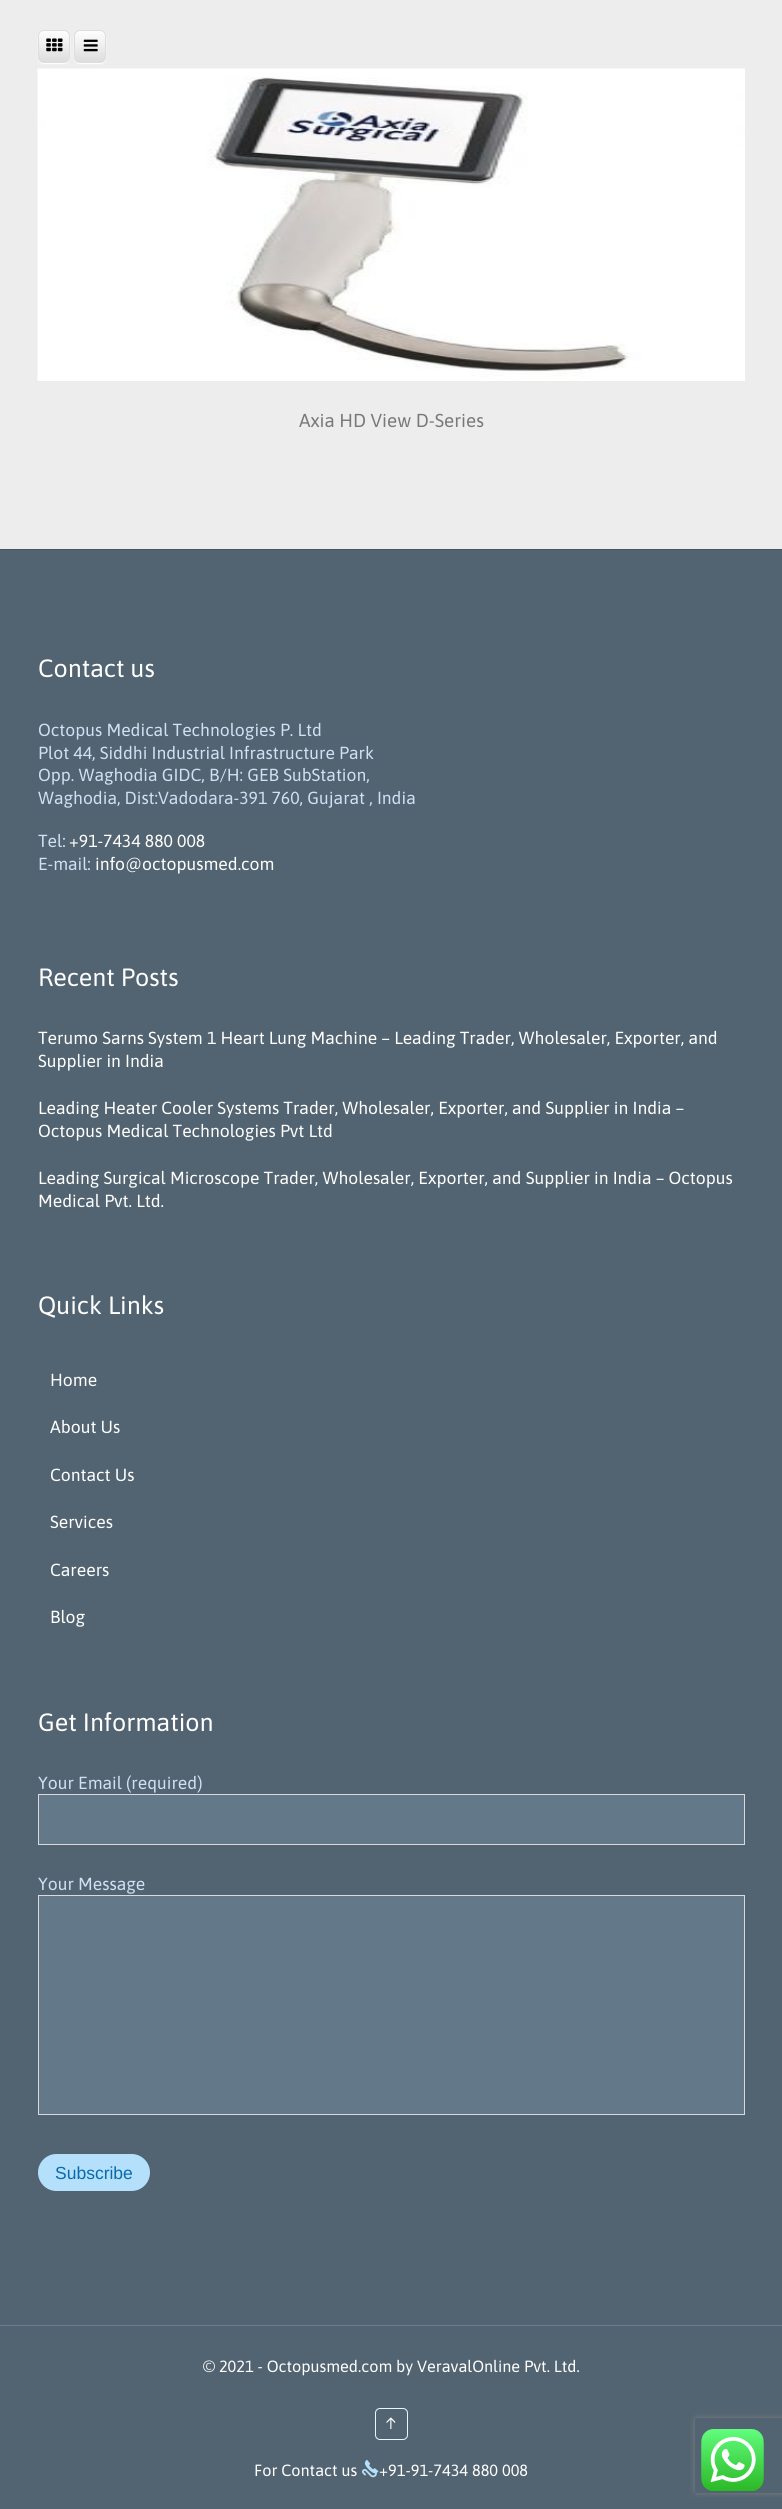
import math
import cairo


def use_color(cr, r, g, b):
  cr.set_source_rgb(r / 255, g / 255, b / 255)

def text(cr, x, y, s, family, size, color, bold=False, italic=False):
  cr.select_font_face(family, cairo.FONT_SLANT_ITALIC if italic else cairo.FONT_SLANT_NORMAL, cairo.FONT_WEIGHT_BOLD if bold else cairo.FONT_WEIGHT_NORMAL)
  cr.set_font_size(size)
  use_color(cr, *color)
  cr.move_to(x, y)
  cr.show_text(s)

def box(cr, x, y, w, h, *color):
  use_color(cr, *color)
  cr.rectangle(x, y, w, h)
  cr.fill()

def round_rect(cr, x, y, w, h, r):
  cr.new_sub_path()
  for i, (u, v) in enumerate([(x + w - r, y + h - r), (x + r, y + h - r), (x + r, y + r), (x + w - r, y + r)]):
    cr.arc(u, v, r, i * math.pi / 2, (i + 1) * math.pi / 2)
  cr.close_path()

def shadow(cr, x, y, w, h, r, blur, alpha):
  cr.push_group_with_content(cairo.CONTENT_ALPHA)
  cr.set_operator(cairo.OPERATOR_SOURCE)
  for i in range(15, -16, -2):
    e = blur * i / 6
    if min(w, h) + 2 * e > 0:
      cr.set_source_rgba(0, 0, 0, alpha * math.erfc((i - 1) / 8.5) / 2)
      round_rect(cr, x - e, y - e, w + 2 * e, h + 2 * e, max(0, min(r + e + blur * .6, min(w, h) / 2 + e)))
      cr.fill()
  cr.mask(cr.pop_group())

def picture(cr, path, x, y, w, h):
  cr.save()
  cr.set_source_surface(cairo.ImageSurface.create_from_png(path), x, y)
  cr.rectangle(x, y, w, h)
  cr.fill()
  cr.restore()

def draw(cr):
  use_color(cr, 237, 237, 237)
  cr.paint()
  use_color(cr, 255, 255, 255)
  shadow(cr, 38, 31, 32, 33, 6, 0.5, 1)
  gradient = cairo.LinearGradient(54, 30, 54, 63)
  gradient.add_color_stop_rgba(0, 1, 1, 1, 1)
  gradient.add_color_stop_rgba(1, 0.863, 0.863, 0.863, 1)
  cr.set_source(gradient)
  round_rect(cr, 38.5, 30.5, 31, 32, 5.5)
  cr.fill_preserve()
  use_color(cr, 221, 221, 221)
  cr.set_line_width(1)
  cr.stroke()
  picture(cr, "img_01.png", 46, 38, 17, 14)
  use_color(cr, 255, 255, 255)
  shadow(cr, 74, 31, 32, 33, 6, 0.5, 1)
  gradient = cairo.LinearGradient(90, 30, 90, 63)
  gradient.add_color_stop_rgba(0, 1, 1, 1, 1)
  gradient.add_color_stop_rgba(1, 0.863, 0.863, 0.863, 1)
  cr.set_source(gradient)
  round_rect(cr, 74.5, 30.5, 31, 32, 5.5)
  cr.fill_preserve()
  use_color(cr, 221, 221, 221)
  cr.stroke()
  picture(cr, "img_02.png", 83, 39, 15, 13)
  picture(cr, "img_03.png", 37, 68, 708, 313)
  box(cr, 0, 550, 782, 1775, 82, 99, 113)
  box(cr, 0, 549, 782, 1, 71, 86, 98)
  box(cr, 0, 2325, 782, 1, 103, 125, 143)
  use_color(cr, 99, 120, 137)
  cr.rectangle(38.5, 1794.5, 706, 50)
  cr.fill_preserve()
  use_color(cr, 218, 218, 222)
  cr.stroke()
  use_color(cr, 99, 120, 137)
  cr.rectangle(38.5, 1895.5, 706, 219)
  cr.fill_preserve()
  use_color(cr, 218, 218, 222)
  cr.stroke()
  use_color(cr, 181, 224, 252)
  round_rect(cr, 38, 2154, 112, 37, 18.5)
  cr.fill()
  box(cr, 0, 2326, 782, 183, 82, 99, 113)
  round_rect(cr, 375.5, 2408.5, 32, 31, 4.5)
  use_color(cr, 231, 246, 255)
  cr.stroke()
  picture(cr, "img_04.png", 362, 2459, 17, 19)
  cr.save()
  cr.set_fill_rule(cairo.FILL_RULE_EVEN_ODD)
  cr.new_path()
  cr.move_to(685, 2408)
  cr.line_to(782, 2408)
  cr.line_to(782, 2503)
  cr.line_to(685, 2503)
  cr.close_path()
  cr.move_to(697.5, 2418)
  cr.line_to(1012.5, 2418)
  cr.curve_to(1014, 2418, 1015, 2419, 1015, 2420.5)
  cr.line_to(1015, 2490.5)
  cr.curve_to(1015, 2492, 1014, 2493, 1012.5, 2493)
  cr.line_to(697.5, 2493)
  cr.curve_to(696, 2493, 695, 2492, 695, 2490.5)
  cr.line_to(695, 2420.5)
  cr.curve_to(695, 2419, 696, 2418, 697.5, 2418)
  cr.close_path()
  cr.clip()
  use_color(cr, 128, 128, 128)
  shadow(cr, 695, 2418, 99, 75, 2.5, 3, 1)
  cr.restore()
  picture(cr, "img_05.png", 701, 2429, 63, 62)
  text(cr, 299, 427, "Axia HD View D-Series", "Asap", 18.75, (121, 121, 121))
  text(cr, 38, 677, "Contact us", "Asap", 25, (255, 255, 255))
  text(cr, 38, 736, "Octopus Medical Technologies P. Ltd", "Asap", 17.5, (205, 226, 244))
  text(cr, 38, 759, "Plot 44, Siddhi Industrial Infrastructure Park", "Asap", 17.5, (205, 226, 244))
  text(cr, 38, 781, "Opp. Waghodia GIDC, B/H: GEB SubStation,", "Asap", 17.5, (205, 226, 244))
  text(cr, 38, 804, "Waghodia, Dist:Vadodara-391 760, Gujarat , India", "Asap", 17.5, (205, 226, 244))
  text(cr, 38, 847, "Tel:", "Asap", 17.5, (205, 226, 244))
  text(cr, 69, 847, "+91-7434 880 008", "Asap", 17.5, (255, 255, 255))
  text(cr, 38, 870, "E-mail:", "Asap", 17.5, (205, 226, 244))
  text(cr, 95, 870, "info@octopusmed.com", "Asap", 17.5, (255, 255, 255))
  text(cr, 38, 986, "Recent Posts", "Asap", 25, (255, 255, 255))
  text(cr, 38, 1044, "Terumo Sarns System 1 Heart Lung Machine – Leading Trader, Wholesaler, Exporter, and", "Asap", 17.5, (255, 255, 255))
  text(cr, 38, 1067, "Supplier in India", "Asap", 17.5, (255, 255, 255))
  text(cr, 38, 1114, "Leading Heater Cooler Systems Trader, Wholesaler, Exporter, and Supplier in India –", "Asap", 17.5, (255, 255, 255))
  text(cr, 38, 1137, "Octopus Medical Technologies Pvt Ltd", "Asap", 17.5, (255, 255, 255))
  text(cr, 38, 1184, "Leading Surgical Microscope Trader, Wholesaler, Exporter, and Supplier in India – Octopus", "Asap", 17.5, (255, 255, 255))
  text(cr, 38, 1207, "Medical Pvt. Ltd.", "Asap", 17.5, (255, 255, 255))
  text(cr, 38, 1314, "Quick Links", "Asap", 25, (255, 255, 255))
  text(cr, 50, 1386, "Home", "Asap", 17.5, (255, 255, 255))
  text(cr, 50, 1433, "About Us", "Asap", 17.5, (255, 255, 255))
  text(cr, 50, 1481, "Contact Us", "Asap", 17.5, (255, 255, 255))
  text(cr, 50, 1528, "Services", "Asap", 17.5, (255, 255, 255))
  text(cr, 50, 1576, "Careers", "Asap", 17.5, (255, 255, 255))
  text(cr, 50, 1623, "Blog", "Asap", 17.5, (255, 255, 255))
  text(cr, 38, 1731, "Get Information", "Asap", 25, (255, 255, 255))
  text(cr, 38, 1789, "Your Email (required)", "Asap", 17.5, (205, 226, 244))
  text(cr, 38, 1890, "Your Message", "Asap", 17.5, (205, 226, 244))
  text(cr, 55, 2179, "Subscribe", "Liberation Sans", 17.5, (7, 106, 171))
  text(cr, 203, 2372, "© 2021 - Octopusmed.com by VeravalOnline Pvt. Ltd.", "Asap", 16.25, (255, 255, 255))
  text(cr, 386, 2429, "↑", "Asap", 16.25, (255, 255, 255))
  text(cr, 254, 2476, "For Contact us", "Asap", 16.25, (255, 255, 255))
  text(cr, 379, 2476, "+91-91-7434 880 008", "Asap", 16.25, (255, 255, 255))


surface = cairo.ImageSurface(cairo.FORMAT_RGB24, 782, 2509)
cr = cairo.Context(surface)
options = cairo.FontOptions()
options.set_hint_metrics(cairo.HINT_METRICS_OFF)
options.set_hint_style(cairo.HINT_STYLE_NONE)
cr.set_font_options(options)
cr.set_miter_limit(4)
draw(cr)
surface.write_to_png("out.png")
